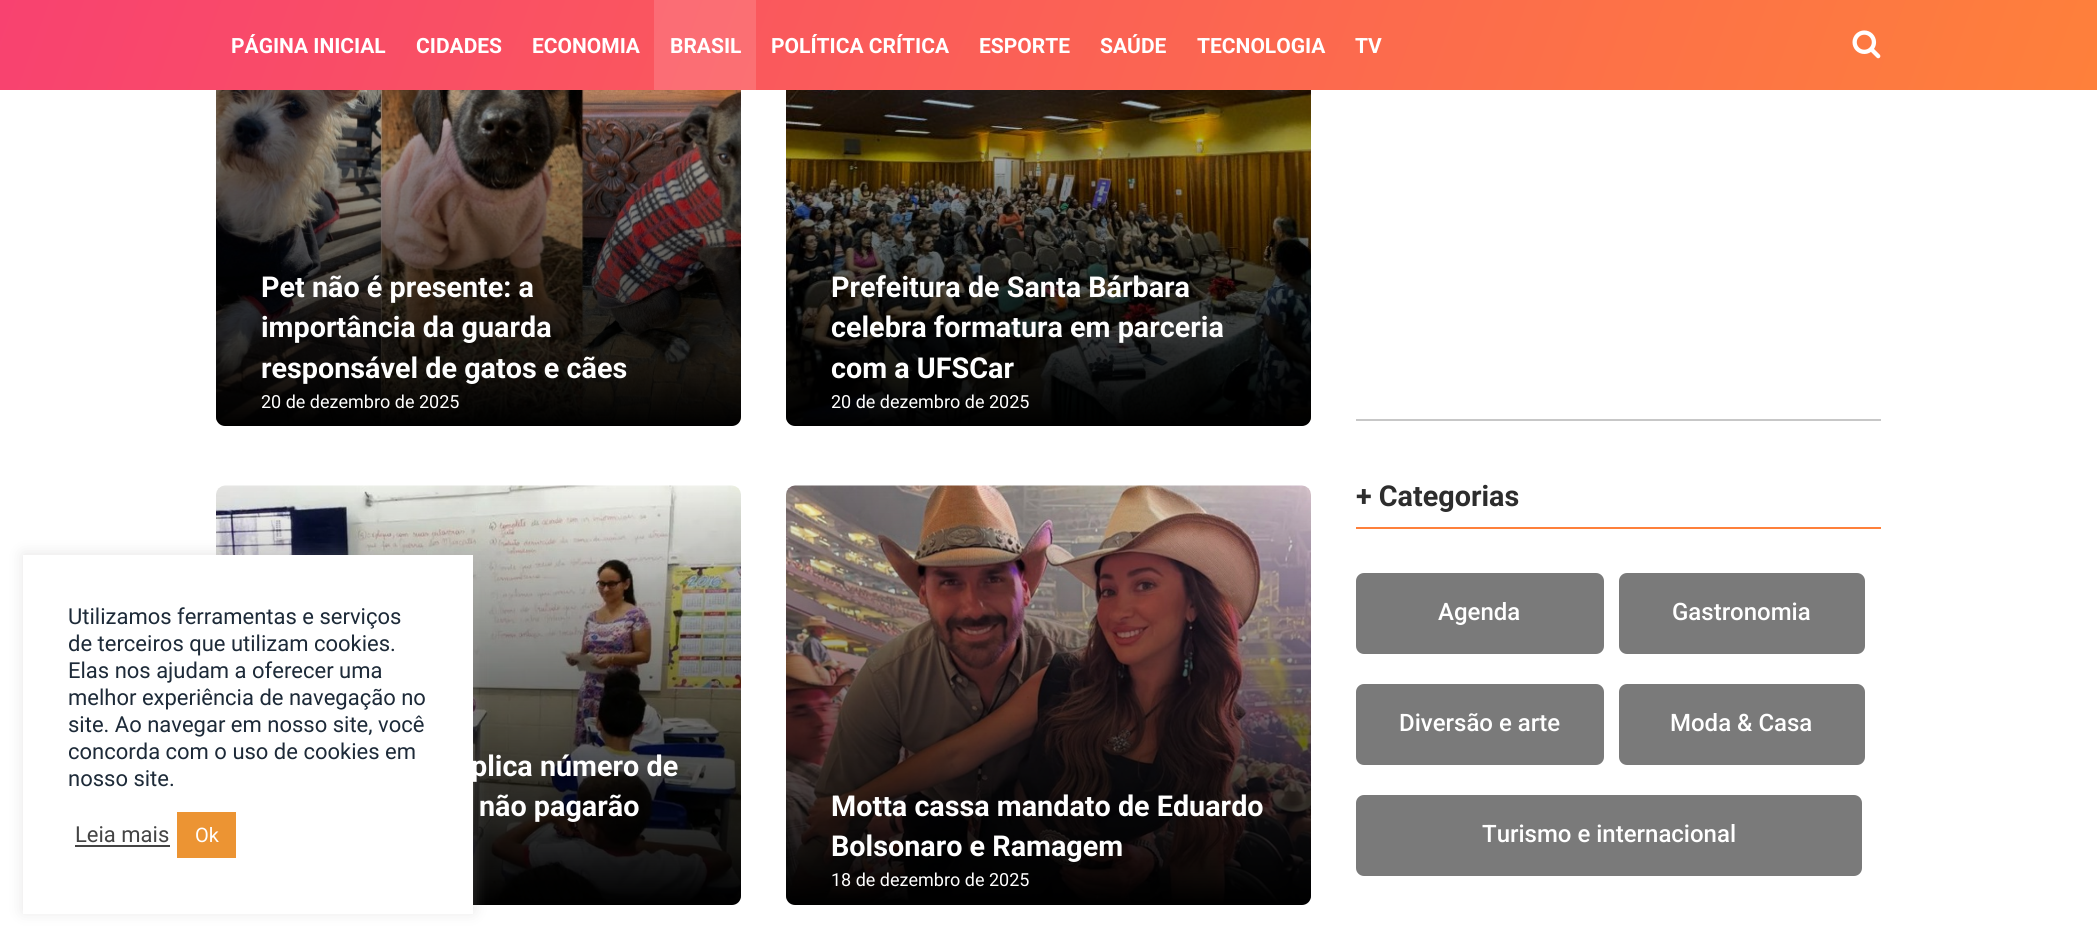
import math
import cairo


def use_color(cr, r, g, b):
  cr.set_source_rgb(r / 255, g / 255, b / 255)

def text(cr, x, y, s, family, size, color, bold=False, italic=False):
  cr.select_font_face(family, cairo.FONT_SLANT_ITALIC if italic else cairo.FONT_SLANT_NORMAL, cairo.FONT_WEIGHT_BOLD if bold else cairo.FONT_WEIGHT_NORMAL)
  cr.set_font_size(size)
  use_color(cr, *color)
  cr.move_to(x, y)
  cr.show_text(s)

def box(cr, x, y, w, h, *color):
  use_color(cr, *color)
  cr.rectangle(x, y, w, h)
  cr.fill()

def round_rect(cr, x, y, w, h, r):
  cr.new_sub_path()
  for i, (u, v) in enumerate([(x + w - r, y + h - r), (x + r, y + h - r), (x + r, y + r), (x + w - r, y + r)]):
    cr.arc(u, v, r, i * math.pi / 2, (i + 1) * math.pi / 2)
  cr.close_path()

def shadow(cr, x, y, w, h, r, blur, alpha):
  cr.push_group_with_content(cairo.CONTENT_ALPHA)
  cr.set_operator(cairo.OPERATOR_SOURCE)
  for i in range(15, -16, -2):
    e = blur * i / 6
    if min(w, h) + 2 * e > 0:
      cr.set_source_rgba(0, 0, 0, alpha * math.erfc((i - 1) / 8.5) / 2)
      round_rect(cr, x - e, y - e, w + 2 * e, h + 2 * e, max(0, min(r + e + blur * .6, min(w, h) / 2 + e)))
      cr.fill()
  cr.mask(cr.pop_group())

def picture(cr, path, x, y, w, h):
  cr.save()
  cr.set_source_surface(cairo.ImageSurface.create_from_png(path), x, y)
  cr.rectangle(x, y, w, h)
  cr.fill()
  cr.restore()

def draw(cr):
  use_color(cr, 255, 255, 255)
  cr.paint()
  picture(cr, "img_02.png", 216, 90, 525, 336)
  gradient = cairo.LinearGradient(479, 426, 479, 7.5)
  gradient.add_color_stop_rgba(0, 0, 0, 0, 1)
  gradient.add_color_stop_rgba(1, 0, 0, 0, 0)
  cr.set_source(gradient)
  round_rect(cr, 216, 8, 525, 418, 9)
  cr.fill()
  picture(cr, "img_03.png", 786, 90, 525, 336)
  gradient = cairo.LinearGradient(1049, 426, 1049, 7.5)
  gradient.add_color_stop_rgba(0, 0, 0, 0, 1)
  gradient.add_color_stop_rgba(1, 0, 0, 0, 0)
  cr.set_source(gradient)
  round_rect(cr, 786, 8, 525, 418, 9)
  cr.fill()
  gradient = cairo.LinearGradient(1989, 387, 108, -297)
  gradient.add_color_stop_rgba(0, 0.996, 0.502, 0.231, 1)
  gradient.add_color_stop_rgba(1, 0.973, 0.259, 0.439, 1)
  cr.set_source(gradient)
  cr.rectangle(0, 0, 2097, 90)
  cr.fill()
  cr.set_source_rgba(1, 1, 1, 0.14)
  cr.rectangle(654, 0, 102, 90)
  cr.fill()
  picture(cr, "img_01.png", 1852, 30, 29, 29)
  picture(cr, "img_04.png", 216, 485, 525, 418)
  gradient = cairo.LinearGradient(479, 905, 479, 486)
  gradient.add_color_stop_rgba(0, 0, 0, 0, 1)
  gradient.add_color_stop_rgba(1, 0, 0, 0, 0)
  cr.set_source(gradient)
  round_rect(cr, 216, 486, 525, 419, 9)
  cr.fill()
  use_color(cr, 172, 171, 171)
  shadow(cr, 23, 554, 450, 358, 0, 7.5, 0.3)
  box(cr, 23, 555, 450, 359, 255, 255, 255)
  box(cr, 75, 845, 95, 2, 68, 68, 68)
  box(cr, 177, 812, 59, 46, 236, 148, 51)
  picture(cr, "img_05.png", 786, 485, 525, 418)
  gradient = cairo.LinearGradient(1049, 905, 1049, 486)
  gradient.add_color_stop_rgba(0, 0, 0, 0, 1)
  gradient.add_color_stop_rgba(1, 0, 0, 0, 0)
  cr.set_source(gradient)
  round_rect(cr, 786, 486, 525, 419, 9)
  cr.fill()
  box(cr, 1356, 419, 525, 2, 199, 199, 199)
  box(cr, 1356, 527, 525, 2, 254, 128, 59)
  use_color(cr, 122, 122, 122)
  round_rect(cr, 1356, 573, 248, 81, 8)
  cr.fill()
  round_rect(cr, 1619, 573, 246, 81, 8)
  cr.fill()
  round_rect(cr, 1356, 684, 248, 81, 8)
  cr.fill()
  round_rect(cr, 1619, 684, 246, 81, 8)
  cr.fill()
  round_rect(cr, 1356, 795, 506, 81, 8)
  cr.fill()
  text(cr, 231, 53, "PÁGINA INICIAL", "Roboto", 21, (255, 255, 255), bold=True)
  text(cr, 416, 53, "CIDADES", "Roboto", 21, (255, 255, 255), bold=True)
  text(cr, 532, 53, "ECONOMIA", "Roboto", 21, (255, 255, 255), bold=True)
  text(cr, 670, 53, "BRASIL", "Roboto", 21, (255, 255, 255), bold=True)
  text(cr, 771, 53, "POLÍTICA CRÍTICA", "Roboto", 21, (255, 255, 255), bold=True)
  text(cr, 979, 53, "ESPORTE", "Roboto", 21, (255, 255, 255), bold=True)
  text(cr, 1100, 53, "SAÚDE", "Roboto", 21, (255, 255, 255), bold=True)
  text(cr, 1197, 53, "TECNOLOGIA", "Roboto", 21, (255, 255, 255), bold=True)
  text(cr, 1355, 53, "TV", "Roboto", 21, (255, 255, 255), bold=True)
  text(cr, 68, 624, "Utilizamos ferramentas e serviços", "Roboto", 22, (29, 42, 56))
  text(cr, 68, 651, "de terceiros que utilizam cookies.", "Roboto", 22, (29, 42, 56))
  text(cr, 68, 678, "Elas nos ajudam a oferecer uma", "Roboto", 22, (29, 42, 56))
  text(cr, 68, 705, "melhor experiência de navegação no", "Roboto", 22, (29, 42, 56))
  text(cr, 68, 732, "site. Ao navegar em nosso site, você", "Roboto", 22, (29, 42, 56))
  text(cr, 68, 759, "concorda com o uso de cookies em", "Roboto", 22, (29, 42, 56))
  text(cr, 68, 786, "nosso site.", "Roboto", 22, (29, 42, 56))
  text(cr, 75, 842, "Leia mais", "Roboto", 22, (68, 68, 68))
  text(cr, 195, 842, "Ok", "Roboto", 20, (255, 255, 255))
  text(cr, 261, 297, "Pet não é presente: a", "Roboto", 28.75, (255, 255, 255), bold=True)
  text(cr, 261, 337, "importância da guarda", "Roboto", 28.75, (255, 255, 255), bold=True)
  text(cr, 261, 378, "responsável de gatos e cães", "Roboto", 28.75, (255, 255, 255), bold=True)
  text(cr, 261, 408, "20 de dezembro de 2025", "Roboto", 18, (255, 255, 255))
  text(cr, 831, 297, "Prefeitura de Santa Bárbara", "Roboto", 28.75, (255, 255, 255), bold=True)
  text(cr, 831, 337, "celebra formatura em parceria", "Roboto", 28.75, (255, 255, 255), bold=True)
  text(cr, 831, 378, "com a UFSCar", "Roboto", 28.75, (255, 255, 255), bold=True)
  text(cr, 831, 408, "20 de dezembro de 2025", "Roboto", 18, (255, 255, 255))
  text(cr, 471, 776, "plica número de", "Roboto", 28.75, (255, 255, 255), bold=True)
  text(cr, 479, 816, "não pagarão", "Roboto", 28.75, (255, 255, 255), bold=True)
  text(cr, 831, 816, "Motta cassa mandato de Eduardo", "Roboto", 28.75, (255, 255, 255), bold=True)
  text(cr, 831, 856, "Bolsonaro e Ramagem", "Roboto", 28.75, (255, 255, 255), bold=True)
  text(cr, 831, 886, "18 de dezembro de 2025", "Roboto", 18, (255, 255, 255))
  text(cr, 1356, 506, "+ Categorias", "Roboto", 28.75, (45, 45, 45), bold=True)
  text(cr, 1438, 620, "Agenda", "Roboto Medium", 24, (255, 255, 255))
  text(cr, 1672, 620, "Gastronomia", "Roboto Medium", 24, (255, 255, 255))
  text(cr, 1399, 731, "Diversão e arte", "Roboto Medium", 24, (255, 255, 255))
  text(cr, 1670, 731, "Moda & Casa", "Roboto Medium", 24, (255, 255, 255))
  text(cr, 1482, 842, "Turismo e internacional", "Roboto Medium", 24, (255, 255, 255))


surface = cairo.ImageSurface(cairo.FORMAT_RGB24, 2097, 935)
cr = cairo.Context(surface)
options = cairo.FontOptions()
options.set_hint_metrics(cairo.HINT_METRICS_OFF)
options.set_hint_style(cairo.HINT_STYLE_NONE)
cr.set_font_options(options)
cr.set_miter_limit(4)
draw(cr)
surface.write_to_png("out.png")
